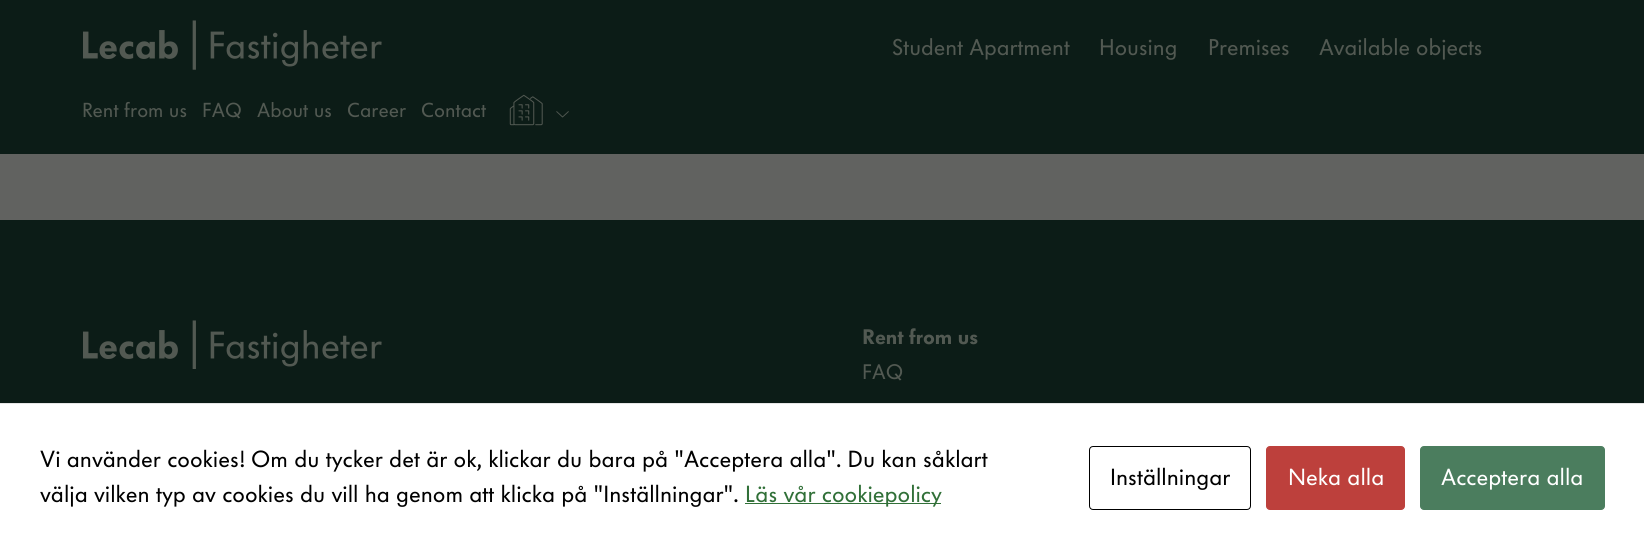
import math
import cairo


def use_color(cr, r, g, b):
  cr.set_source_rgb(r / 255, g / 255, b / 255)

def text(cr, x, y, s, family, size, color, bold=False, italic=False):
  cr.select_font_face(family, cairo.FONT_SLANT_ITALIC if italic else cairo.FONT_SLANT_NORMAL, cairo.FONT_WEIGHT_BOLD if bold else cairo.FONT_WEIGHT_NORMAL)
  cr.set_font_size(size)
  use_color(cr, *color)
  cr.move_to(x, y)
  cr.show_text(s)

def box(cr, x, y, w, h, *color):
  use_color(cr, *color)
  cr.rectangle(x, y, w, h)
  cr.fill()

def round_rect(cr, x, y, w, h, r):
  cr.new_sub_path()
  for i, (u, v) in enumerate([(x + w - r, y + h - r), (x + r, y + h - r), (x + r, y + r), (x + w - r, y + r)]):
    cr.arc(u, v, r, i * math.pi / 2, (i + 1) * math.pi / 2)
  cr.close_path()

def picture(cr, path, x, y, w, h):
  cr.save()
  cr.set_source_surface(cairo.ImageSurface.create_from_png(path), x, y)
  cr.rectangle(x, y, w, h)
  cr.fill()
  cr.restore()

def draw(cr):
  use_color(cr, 97, 98, 96)
  cr.paint()
  box(cr, 0, 0, 1644, 154, 12, 28, 23)
  picture(cr, "img_01.png", 83, 20, 299, 50)
  picture(cr, "img_02.png", 509, 94, 34, 32)
  picture(cr, "img_03.png", 556, 111, 13, 7)
  box(cr, 0, 220, 1644, 183, 12, 28, 23)
  picture(cr, "img_04.png", 83, 320, 299, 49)
  box(cr, 0, 404, 1644, 148, 255, 255, 255)
  box(cr, 0, 403, 1644, 1, 230, 230, 230)
  box(cr, 745, 503, 196, 1, 49, 112, 56)
  round_rect(cr, 1089.5, 446.5, 161, 63, 3.5)
  use_color(cr, 0, 0, 0)
  cr.set_line_width(1)
  cr.stroke()
  use_color(cr, 189, 64, 60)
  round_rect(cr, 1266.5, 446.5, 138, 63, 3.5)
  cr.fill_preserve()
  cr.stroke()
  use_color(cr, 75, 125, 94)
  round_rect(cr, 1420.5, 446.5, 184, 63, 3.5)
  cr.fill_preserve()
  cr.stroke()
  text(cr, 892, 55, "Student Apartment", "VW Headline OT", 22.5, (82, 89, 82))
  text(cr, 1099, 55, "Housing", "VW Headline OT", 22.5, (82, 89, 82))
  text(cr, 1208, 55, "Premises", "VW Headline OT", 22.5, (82, 89, 82))
  text(cr, 1319, 55, "Available objects", "VW Headline OT", 22.5, (82, 89, 82))
  text(cr, 82, 117, "Rent from us", "VW Headline OT", 20, (82, 89, 82))
  text(cr, 202, 117, "FAQ", "VW Headline OT", 20, (82, 89, 82))
  text(cr, 257, 117, "About us", "VW Headline OT", 20, (82, 89, 82))
  text(cr, 347, 117, "Career", "VW Headline OT", 20, (82, 89, 82))
  text(cr, 421, 117, "Contact", "VW Headline OT", 20, (82, 89, 82))
  text(cr, 862, 344, "Rent from us", "VW Headline OT Black", 20.75, (82, 89, 82))
  text(cr, 862, 379, "FAQ", "VW Headline OT", 20.75, (82, 89, 82))
  text(cr, 40, 467, "Vi använder cookies! Om du tycker det är ok, klickar du bara på \"Acceptera alla\". Du kan såklart", "VW Headline OT", 23, (0, 0, 0))
  text(cr, 40, 502, "välja vilken typ av cookies du vill ha genom att klicka på \"Inställningar\".", "VW Headline OT", 23, (0, 0, 0))
  text(cr, 745, 502, "Läs vår cookiepolicy", "VW Headline OT", 23, (49, 112, 56))
  text(cr, 1110, 485, "Inställningar", "VW Headline OT", 23, (0, 0, 0))
  text(cr, 1288, 485, "Neka alla", "VW Headline OT", 23, (255, 255, 255))
  text(cr, 1441, 485, "Acceptera alla", "VW Headline OT", 23, (255, 255, 255))


surface = cairo.ImageSurface(cairo.FORMAT_RGB24, 1644, 552)
cr = cairo.Context(surface)
options = cairo.FontOptions()
options.set_hint_metrics(cairo.HINT_METRICS_OFF)
options.set_hint_style(cairo.HINT_STYLE_NONE)
cr.set_font_options(options)
cr.set_miter_limit(4)
draw(cr)
surface.write_to_png("out.png")
